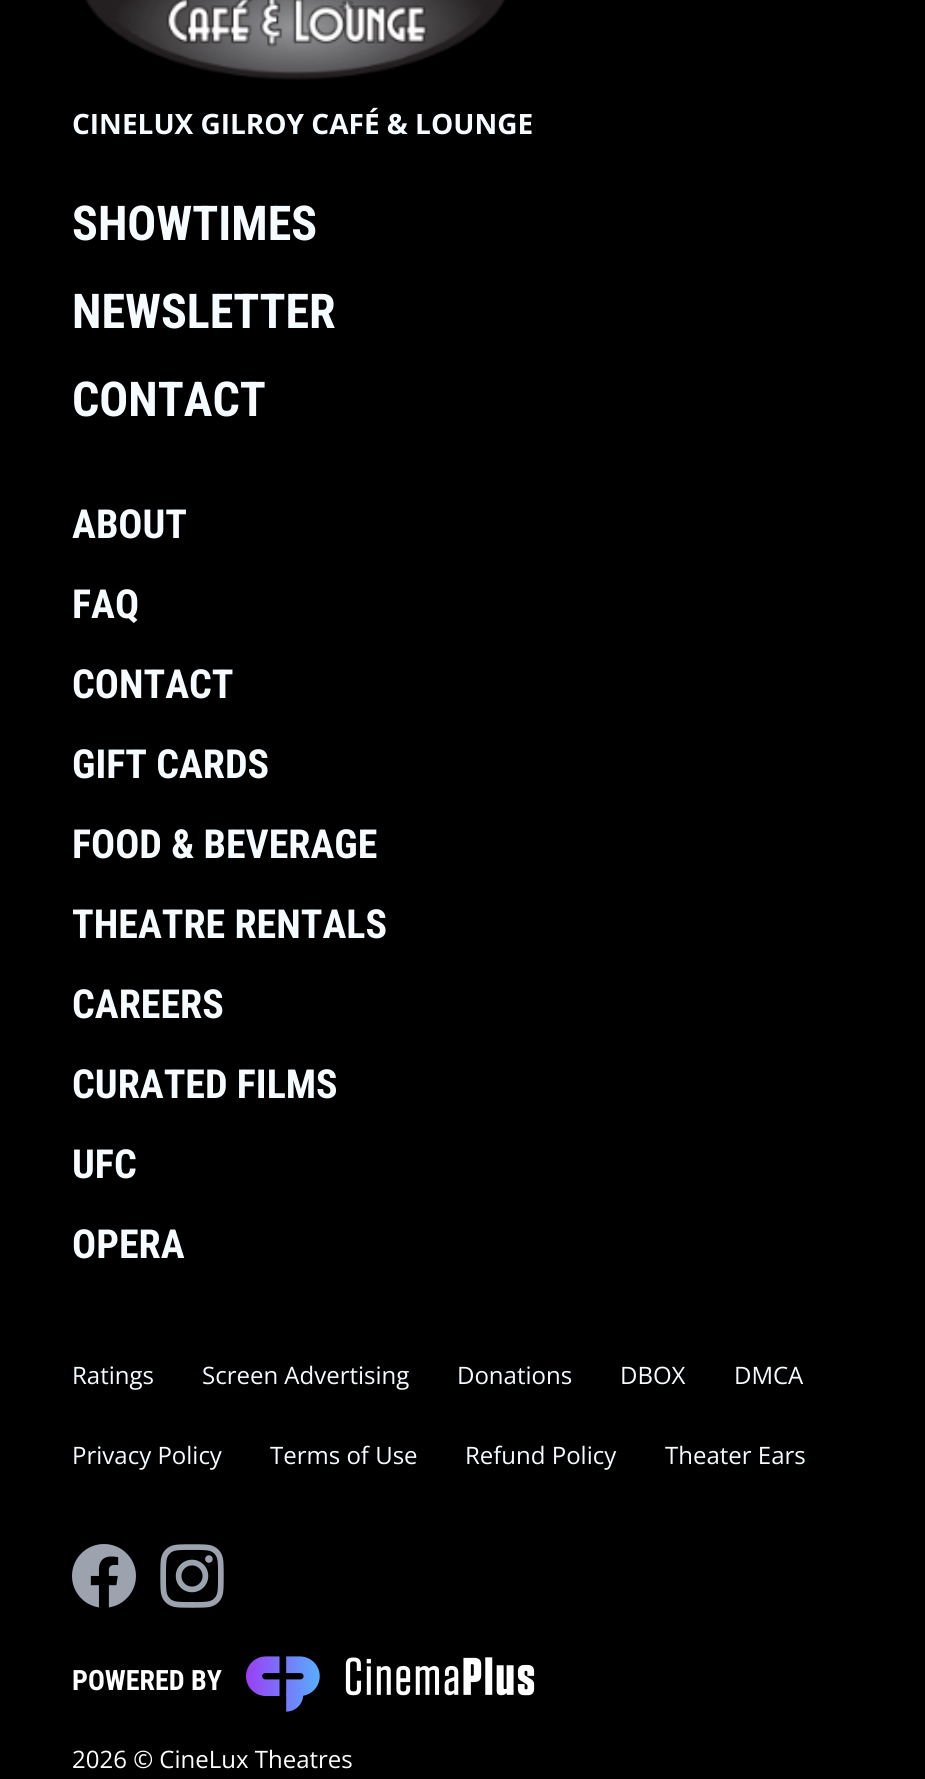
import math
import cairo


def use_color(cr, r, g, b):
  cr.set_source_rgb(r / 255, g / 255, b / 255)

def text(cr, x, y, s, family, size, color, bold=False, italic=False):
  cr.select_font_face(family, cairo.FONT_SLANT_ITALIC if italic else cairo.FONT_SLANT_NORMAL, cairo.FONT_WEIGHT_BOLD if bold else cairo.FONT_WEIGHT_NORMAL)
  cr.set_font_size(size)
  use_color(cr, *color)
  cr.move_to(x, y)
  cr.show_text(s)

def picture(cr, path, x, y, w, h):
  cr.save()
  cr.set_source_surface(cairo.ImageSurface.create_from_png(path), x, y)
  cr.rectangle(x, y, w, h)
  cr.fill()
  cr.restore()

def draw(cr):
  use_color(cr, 0, 0, 0)
  cr.paint()
  picture(cr, "img_01.png", 85, 0, 421, 80)
  picture(cr, "img_02.png", 72, 1544, 64, 64)
  picture(cr, "img_03.png", 160, 1544, 64, 64)
  picture(cr, "img_04.png", 246, 1656, 289, 56)
  text(cr, 72, 134, "CINELUX GILROY CAFÉ & LOUNGE", "Open Sans", 28, (246, 251, 255), bold=True)
  text(cr, 72, 240, "SHOWTIMES", "Roboto Condensed", 48, (246, 251, 255), bold=True)
  text(cr, 72, 328, "NEWSLETTER", "Roboto Condensed", 48, (246, 251, 255), bold=True)
  text(cr, 72, 416, "CONTACT", "Roboto Condensed", 48, (246, 251, 255), bold=True)
  text(cr, 72, 538, "ABOUT", "Roboto Condensed", 40, (246, 251, 255), bold=True)
  text(cr, 72, 618, "FAQ", "Roboto Condensed", 40, (246, 251, 255), bold=True)
  text(cr, 72, 698, "CONTACT", "Roboto Condensed", 40, (246, 251, 255), bold=True)
  text(cr, 72, 778, "GIFT CARDS", "Roboto Condensed", 40, (246, 251, 255), bold=True)
  text(cr, 72, 858, "FOOD & BEVERAGE", "Roboto Condensed", 40, (246, 251, 255), bold=True)
  text(cr, 72, 938, "THEATRE RENTALS", "Roboto Condensed", 40, (246, 251, 255), bold=True)
  text(cr, 72, 1018, "CAREERS", "Roboto Condensed", 40, (246, 251, 255), bold=True)
  text(cr, 72, 1098, "CURATED FILMS", "Roboto Condensed", 40, (246, 251, 255), bold=True)
  text(cr, 72, 1178, "UFC", "Roboto Condensed", 40, (246, 251, 255), bold=True)
  text(cr, 72, 1258, "OPERA", "Roboto Condensed", 40, (246, 251, 255), bold=True)
  text(cr, 72, 1384, "Ratings", "Open Sans", 24, (246, 251, 255))
  text(cr, 202, 1384, "Screen Advertising", "Open Sans", 24, (246, 251, 255))
  text(cr, 457, 1384, "Donations", "Open Sans", 24, (246, 251, 255))
  text(cr, 620, 1384, "DBOX", "Open Sans", 24, (246, 251, 255))
  text(cr, 734, 1384, "DMCA", "Open Sans", 24, (246, 251, 255))
  text(cr, 72, 1464, "Privacy Policy", "Open Sans", 24, (246, 251, 255))
  text(cr, 270, 1464, "Terms of Use", "Open Sans", 24, (246, 251, 255))
  text(cr, 465, 1464, "Refund Policy", "Open Sans", 24, (246, 251, 255))
  text(cr, 665, 1464, "Theater Ears", "Open Sans", 24, (246, 251, 255))
  text(cr, 72, 1690, "POWERED BY", "Roboto Condensed", 28, (255, 255, 255), bold=True)
  text(cr, 72, 1768, "2026 © CineLux Theatres", "Open Sans", 24, (255, 255, 255))


surface = cairo.ImageSurface(cairo.FORMAT_RGB24, 925, 1779)
cr = cairo.Context(surface)
options = cairo.FontOptions()
options.set_hint_metrics(cairo.HINT_METRICS_OFF)
options.set_hint_style(cairo.HINT_STYLE_NONE)
cr.set_font_options(options)
cr.set_miter_limit(4)
draw(cr)
surface.write_to_png("out.png")
